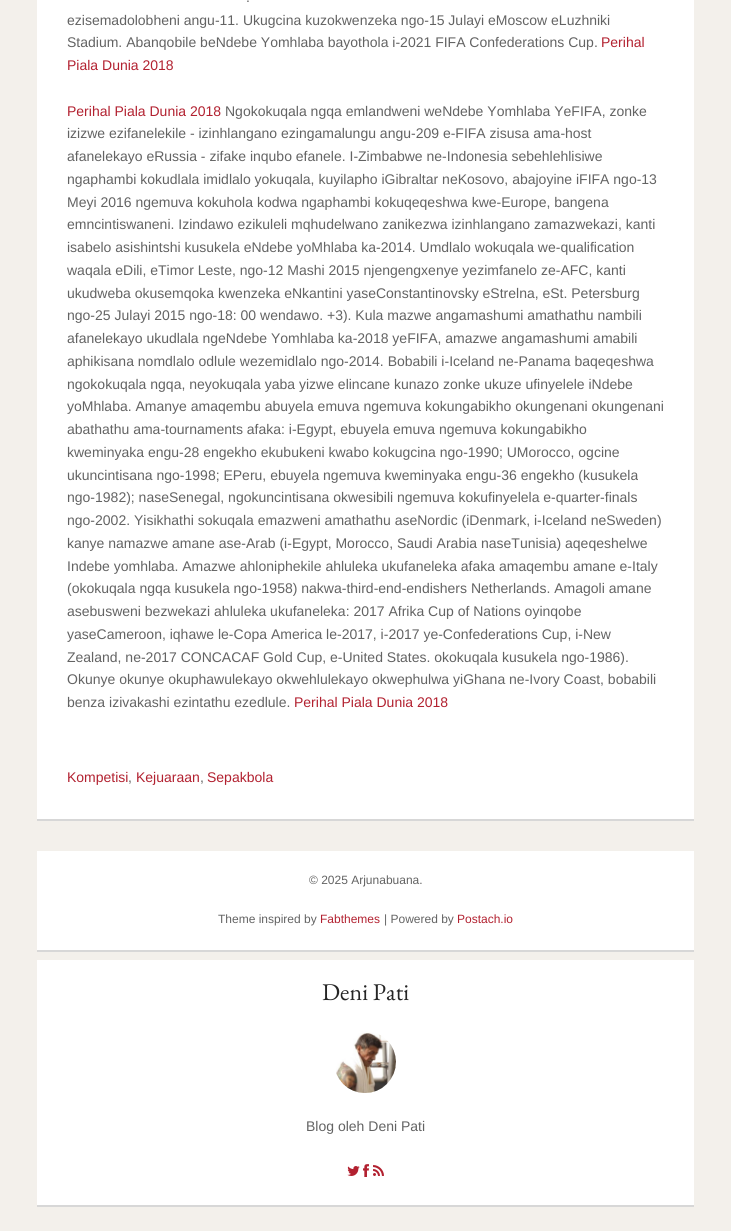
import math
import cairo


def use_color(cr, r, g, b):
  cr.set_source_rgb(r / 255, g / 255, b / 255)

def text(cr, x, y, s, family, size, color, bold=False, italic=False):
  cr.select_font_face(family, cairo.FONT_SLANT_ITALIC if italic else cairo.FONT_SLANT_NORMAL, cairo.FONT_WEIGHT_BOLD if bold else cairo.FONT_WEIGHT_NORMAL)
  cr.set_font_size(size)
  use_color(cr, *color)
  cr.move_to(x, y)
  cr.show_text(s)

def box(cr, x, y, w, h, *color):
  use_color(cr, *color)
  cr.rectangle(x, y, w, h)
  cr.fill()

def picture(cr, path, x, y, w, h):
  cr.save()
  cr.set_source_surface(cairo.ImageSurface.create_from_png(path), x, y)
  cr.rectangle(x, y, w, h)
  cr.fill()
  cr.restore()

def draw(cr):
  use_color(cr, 243, 240, 235)
  cr.paint()
  box(cr, 37, 0, 657, 819, 255, 255, 255)
  box(cr, 37, 819, 657, 2, 215, 215, 215)
  box(cr, 37, 851, 657, 99, 255, 255, 255)
  box(cr, 37, 950, 657, 2, 215, 215, 215)
  box(cr, 37, 960, 657, 245, 255, 255, 255)
  box(cr, 37, 1205, 657, 2, 215, 215, 215)
  picture(cr, "img_01.png", 336, 1031, 60, 62)
  picture(cr, "img_02.png", 347, 1166, 13, 10)
  picture(cr, "img_03.png", 363, 1164, 6, 13)
  picture(cr, "img_04.png", 373, 1165, 11, 11)
  text(cr, 246, 2, ".", "Liberation Sans", 14, (99, 99, 99))
  text(cr, 67, 25, "ezisemadolobheni angu-11. Ukugcina kuzokwenzeka ngo-15 Julayi eMoscow eLuzhniki", "Liberation Sans", 14, (99, 99, 99))
  text(cr, 67, 47, "Stadium. Abanqobile beNdebe Yomhlaba bayothola i-2021 FIFA Confederations Cup.", "Liberation Sans", 14, (99, 99, 99))
  text(cr, 601, 47, "Perihal", "Liberation Sans", 14, (178, 33, 48))
  text(cr, 67, 70, "Piala Dunia 2018", "Liberation Sans", 14, (178, 33, 48))
  text(cr, 67, 116, "Perihal Piala Dunia 2018", "Liberation Sans", 14, (178, 33, 48))
  text(cr, 225, 116, "Ngokokuqala ngqa emlandweni weNdebe Yomhlaba YeFIFA, zonke", "Liberation Sans", 14, (99, 99, 99))
  text(cr, 67, 138, "izizwe ezifanelekile - izinhlangano ezingamalungu angu-209 e-FIFA zisusa ama-host", "Liberation Sans", 14, (99, 99, 99))
  text(cr, 67, 161, "afanelekayo eRussia - zifake inqubo efanele. I-Zimbabwe ne-Indonesia sebehlehlisiwe", "Liberation Sans", 14, (99, 99, 99))
  text(cr, 67, 184, "ngaphambi kokudlala imidlalo yokuqala, kuyilapho iGibraltar neKosovo, abajoyine iFIFA ngo-13", "Liberation Sans", 14, (99, 99, 99))
  text(cr, 67, 207, "Meyi 2016 ngemuva kokuhola kodwa ngaphambi kokuqeqeshwa kwe-Europe, bangena", "Liberation Sans", 14, (99, 99, 99))
  text(cr, 67, 229, "emncintiswaneni. Izindawo ezikuleli mqhudelwano zanikezwa izinhlangano zamazwekazi, kanti", "Liberation Sans", 14, (99, 99, 99))
  text(cr, 67, 252, "isabelo asishintshi kusukela eNdebe yoMhlaba ka-2014. Umdlalo wokuqala we-qualification", "Liberation Sans", 14, (99, 99, 99))
  text(cr, 67, 275, "waqala eDili, eTimor Leste, ngo-12 Mashi 2015 njengengxenye yezimfanelo ze-AFC, kanti", "Liberation Sans", 14, (99, 99, 99))
  text(cr, 67, 298, "ukudweba okusemqoka kwenzeka eNkantini yaseConstantinovsky eStrelna, eSt. Petersburg", "Liberation Sans", 14, (99, 99, 99))
  text(cr, 67, 320, "ngo-25 Julayi 2015 ngo-18: 00 wendawo. +3). Kula mazwe angamashumi amathathu nambili", "Liberation Sans", 14, (99, 99, 99))
  text(cr, 67, 343, "afanelekayo ukudlala ngeNdebe Yomhlaba ka-2018 yeFIFA, amazwe angamashumi amabili", "Liberation Sans", 14, (99, 99, 99))
  text(cr, 67, 366, "aphikisana nomdlalo odlule wezemidlalo ngo-2014. Bobabili i-Iceland ne-Panama baqeqeshwa", "Liberation Sans", 14, (99, 99, 99))
  text(cr, 67, 389, "ngokokuqala ngqa, neyokuqala yaba yizwe elincane kunazo zonke ukuze ufinyelele iNdebe", "Liberation Sans", 14, (99, 99, 99))
  text(cr, 67, 411, "yoMhlaba. Amanye amaqembu abuyela emuva ngemuva kokungabikho okungenani okungenani", "Liberation Sans", 14, (99, 99, 99))
  text(cr, 67, 434, "abathathu ama-tournaments afaka: i-Egypt, ebuyela emuva ngemuva kokungabikho", "Liberation Sans", 14, (99, 99, 99))
  text(cr, 67, 457, "kweminyaka engu-28 engekho ekubukeni kwabo kokugcina ngo-1990; UMorocco, ogcine", "Liberation Sans", 14, (99, 99, 99))
  text(cr, 67, 480, "ukuncintisana ngo-1998; EPeru, ebuyela ngemuva kweminyaka engu-36 engekho (kusukela", "Liberation Sans", 14, (99, 99, 99))
  text(cr, 67, 502, "ngo-1982); naseSenegal, ngokuncintisana okwesibili ngemuva kokufinyelela e-quarter-finals", "Liberation Sans", 14, (99, 99, 99))
  text(cr, 67, 525, "ngo-2002. Yisikhathi sokuqala emazweni amathathu aseNordic (iDenmark, i-Iceland neSweden)", "Liberation Sans", 14, (99, 99, 99))
  text(cr, 67, 548, "kanye namazwe amane ase-Arab (i-Egypt, Morocco, Saudi Arabia naseTunisia) aqeqeshelwe", "Liberation Sans", 14, (99, 99, 99))
  text(cr, 67, 571, "Indebe yomhlaba. Amazwe ahloniphekile ahluleka ukufaneleka afaka amaqembu amane e-Italy", "Liberation Sans", 14, (99, 99, 99))
  text(cr, 67, 593, "(okokuqala ngqa kusukela ngo-1958) nakwa-third-end-endishers Netherlands. Amagoli amane", "Liberation Sans", 14, (99, 99, 99))
  text(cr, 67, 616, "asebusweni bezwekazi ahluleka ukufaneleka: 2017 Afrika Cup of Nations oyinqobe", "Liberation Sans", 14, (99, 99, 99))
  text(cr, 67, 639, "yaseCameroon, iqhawe le-Copa America le-2017, i-2017 ye-Confederations Cup, i-New", "Liberation Sans", 14, (99, 99, 99))
  text(cr, 67, 662, "Zealand, ne-2017 CONCACAF Gold Cup, e-United States. okokuqala kusukela ngo-1986).", "Liberation Sans", 14, (99, 99, 99))
  text(cr, 67, 684, "Okunye okunye okuphawulekayo okwehlulekayo okwephulwa yiGhana ne-Ivory Coast, bobabili", "Liberation Sans", 14, (99, 99, 99))
  text(cr, 67, 707, "benza izivakashi ezintathu ezedlule.", "Liberation Sans", 14, (99, 99, 99))
  text(cr, 294, 707, "Perihal Piala Dunia 2018", "Liberation Sans", 14, (178, 33, 48))
  text(cr, 67, 782, "Kompetisi", "Liberation Sans", 14, (178, 33, 48))
  text(cr, 128, 782, ",", "Liberation Sans", 14, (99, 99, 99))
  text(cr, 136, 782, "Kejuaraan", "Liberation Sans", 14, (178, 33, 48))
  text(cr, 200, 782, ",", "Liberation Sans", 14, (99, 99, 99))
  text(cr, 207, 782, "Sepakbola", "Liberation Sans", 14, (178, 33, 48))
  text(cr, 309, 884, "© 2025 Arjunabuana.", "Liberation Sans", 12, (99, 99, 99))
  text(cr, 218, 923, "Theme inspired by", "Liberation Sans", 12, (99, 99, 99))
  text(cr, 320, 923, "Fabthemes", "Liberation Sans", 12, (178, 33, 48))
  text(cr, 384, 923, "| Powered by", "Liberation Sans", 12, (99, 99, 99))
  text(cr, 457, 923, "Postach.io", "Liberation Sans", 12, (178, 33, 48))
  text(cr, 322, 1000, "Deni Pati", "EB Garamond", 24, (37, 37, 37))
  text(cr, 306, 1131, "Blog oleh Deni Pati", "Liberation Sans", 14, (99, 99, 99))


surface = cairo.ImageSurface(cairo.FORMAT_RGB24, 731, 1231)
cr = cairo.Context(surface)
options = cairo.FontOptions()
options.set_hint_metrics(cairo.HINT_METRICS_OFF)
options.set_hint_style(cairo.HINT_STYLE_NONE)
cr.set_font_options(options)
cr.set_miter_limit(4)
draw(cr)
surface.write_to_png("out.png")
